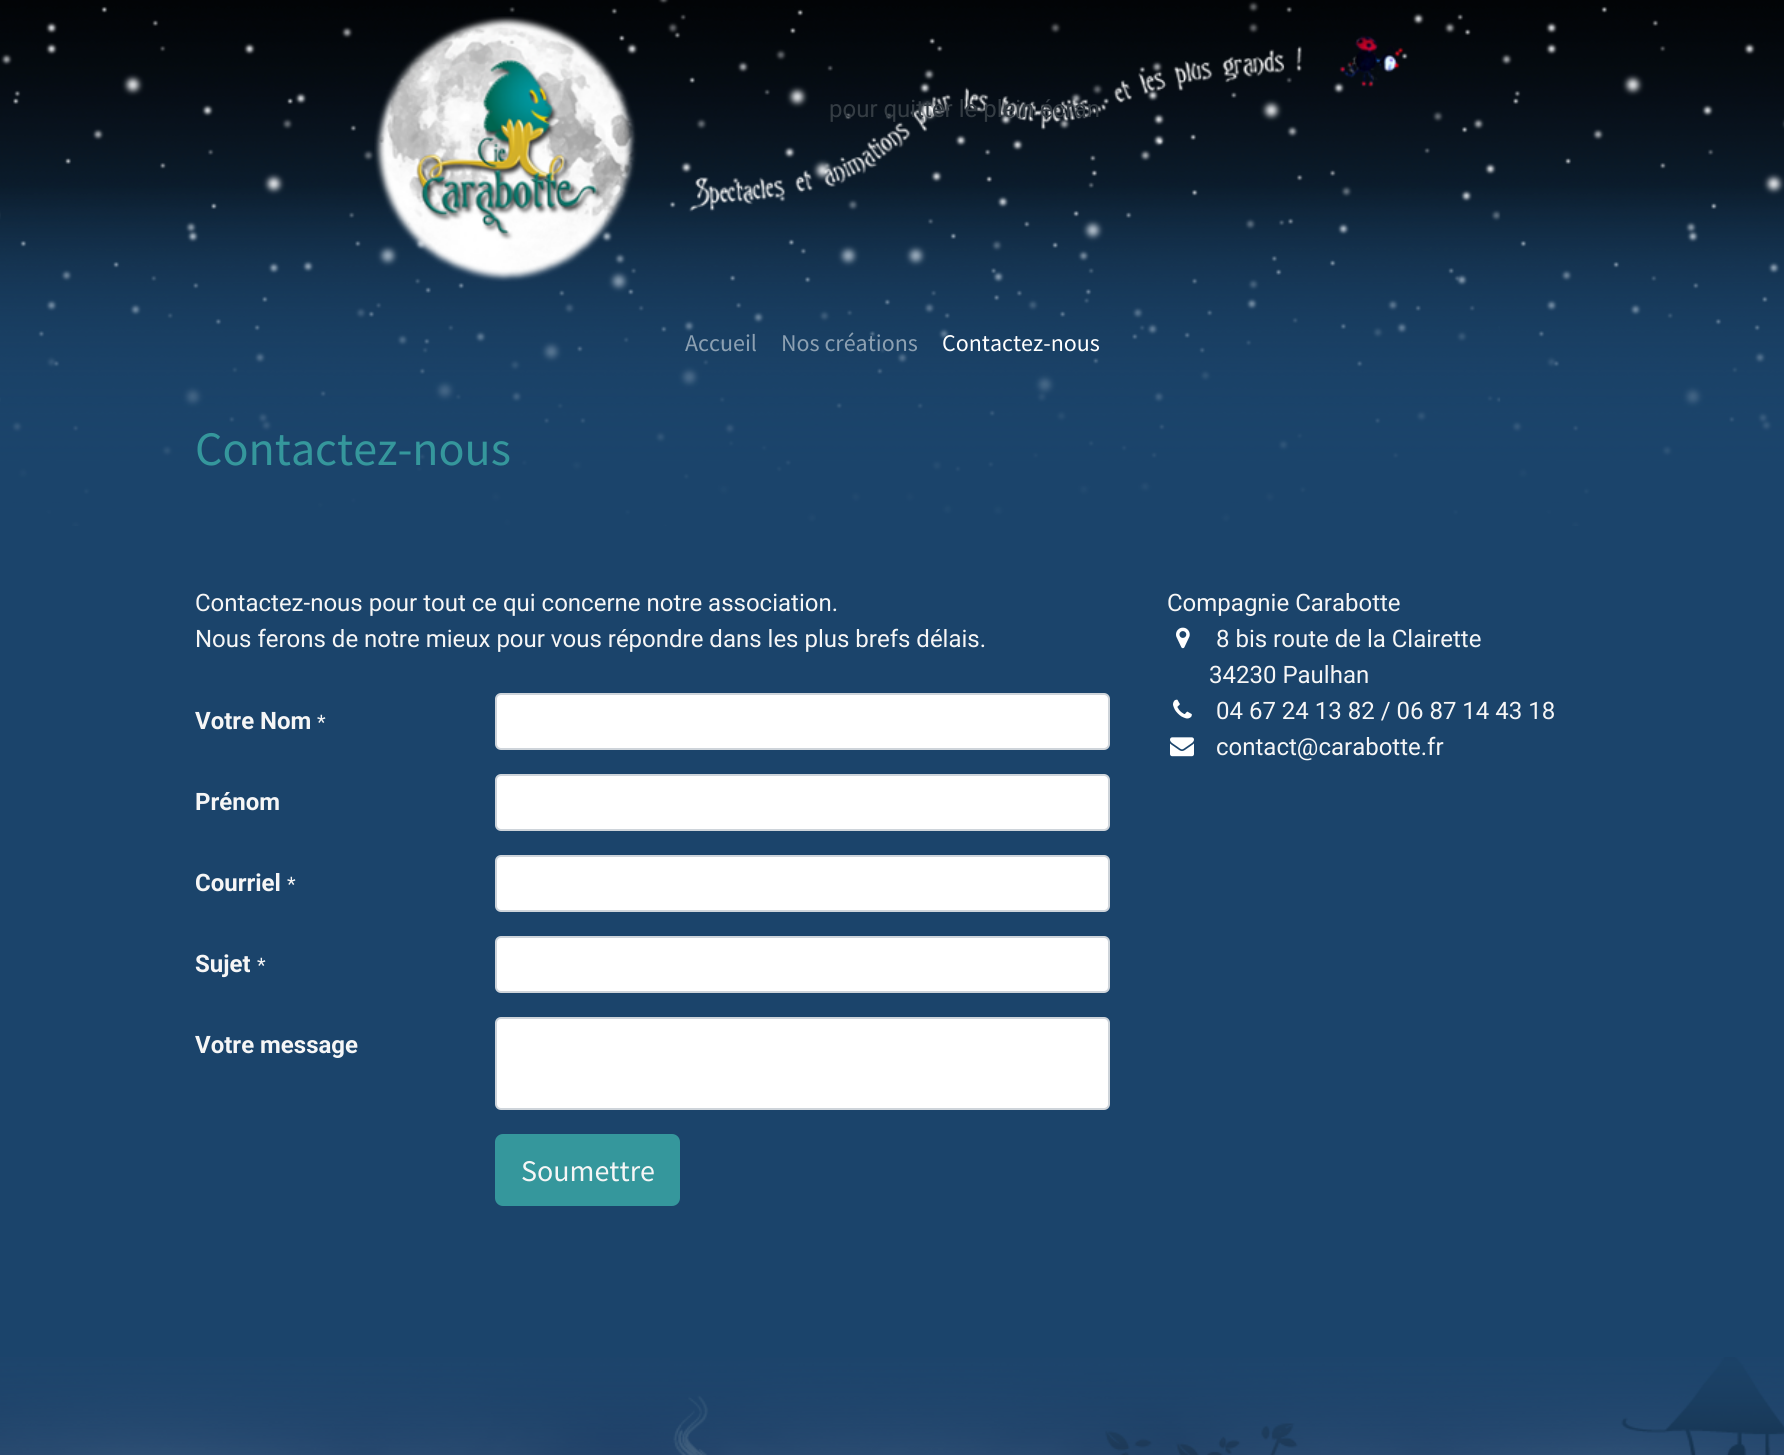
import math
import cairo


def use_color(cr, r, g, b):
  cr.set_source_rgb(r / 255, g / 255, b / 255)

def text(cr, x, y, s, family, size, color, bold=False, italic=False):
  cr.select_font_face(family, cairo.FONT_SLANT_ITALIC if italic else cairo.FONT_SLANT_NORMAL, cairo.FONT_WEIGHT_BOLD if bold else cairo.FONT_WEIGHT_NORMAL)
  cr.set_font_size(size)
  use_color(cr, *color)
  cr.move_to(x, y)
  cr.show_text(s)

def round_rect(cr, x, y, w, h, r):
  cr.new_sub_path()
  for i, (u, v) in enumerate([(x + w - r, y + h - r), (x + r, y + h - r), (x + r, y + r), (x + w - r, y + r)]):
    cr.arc(u, v, r, i * math.pi / 2, (i + 1) * math.pi / 2)
  cr.close_path()

def picture(cr, path, x, y, w, h):
  cr.save()
  cr.set_source_surface(cairo.ImageSurface.create_from_png(path), x, y)
  cr.rectangle(x, y, w, h)
  cr.fill()
  cr.restore()

def draw(cr):
  use_color(cr, 27, 68, 107)
  cr.paint()
  picture(cr, "img_01.png", 0, 0, 1784, 526)
  picture(cr, "img_02.png", 374, 16, 1030, 266)
  use_color(cr, 255, 255, 255)
  round_rect(cr, 496, 694, 613, 55, 5)
  cr.fill_preserve()
  use_color(cr, 206, 212, 218)
  cr.stroke()
  use_color(cr, 255, 255, 255)
  round_rect(cr, 496, 775, 613, 55, 5)
  cr.fill_preserve()
  use_color(cr, 206, 212, 218)
  cr.stroke()
  use_color(cr, 255, 255, 255)
  round_rect(cr, 496, 856, 613, 55, 5)
  cr.fill_preserve()
  use_color(cr, 206, 212, 218)
  cr.stroke()
  use_color(cr, 255, 255, 255)
  round_rect(cr, 496, 937, 613, 55, 5)
  cr.fill_preserve()
  use_color(cr, 206, 212, 218)
  cr.stroke()
  use_color(cr, 255, 255, 255)
  round_rect(cr, 496, 1018, 613, 91, 5)
  cr.fill_preserve()
  use_color(cr, 206, 212, 218)
  cr.stroke()
  use_color(cr, 53, 151, 156)
  round_rect(cr, 496, 1135, 183, 70, 7)
  cr.fill_preserve()
  cr.stroke()
  picture(cr, "img_03.png", 1176, 627, 14, 22)
  picture(cr, "img_04.png", 1173, 699, 19, 20)
  picture(cr, "img_05.png", 1170, 737, 24, 20)
  picture(cr, "img_06.png", 0, 1357, 1784, 98)
  text(cr, 829, 117, "pour quitter le plein écran", "Roboto", 24, (52, 60, 67))
  text(cr, 685, 351, "Accueil", "Source Sans Pro", 24, (140, 160, 178))
  text(cr, 781, 351, "Nos créations", "Source Sans Pro", 24, (140, 160, 178))
  text(cr, 942, 351, "Contactez-nous", "Source Sans Pro", 24, (255, 255, 255))
  text(cr, 195, 465, "Contactez-nous", "Source Sans Pro", 48, (53, 151, 156))
  text(cr, 195, 611, "Contactez-nous pour tout ce qui concerne notre association.", "Roboto", 24, (246, 246, 246))
  text(cr, 195, 647, "Nous ferons de notre mieux pour vous répondre dans les plus brefs délais.", "Roboto", 24, (246, 246, 246))
  text(cr, 195, 729, "Votre Nom", "Roboto", 24, (246, 246, 246), bold=True)
  text(cr, 317, 729, "*", "Roboto", 20, (246, 246, 246))
  text(cr, 195, 810, "Prénom", "Roboto", 24, (246, 246, 246), bold=True)
  text(cr, 195, 891, "Courriel", "Roboto", 24, (246, 246, 246), bold=True)
  text(cr, 287, 891, "*", "Roboto", 20, (246, 246, 246))
  text(cr, 195, 972, "Sujet", "Roboto", 24, (246, 246, 246), bold=True)
  text(cr, 257, 972, "*", "Roboto", 20, (246, 246, 246))
  text(cr, 195, 1053, "Votre message", "Roboto", 24, (246, 246, 246), bold=True)
  text(cr, 521, 1181, "Soumettre", "Source Sans Pro", 30, (246, 246, 246))
  text(cr, 1167, 611, "Compagnie Carabotte", "Roboto", 24, (246, 246, 246))
  text(cr, 1216, 647, "8 bis route de la Clairette", "Roboto", 24, (246, 246, 246))
  text(cr, 1209, 683, "34230 Paulhan", "Roboto", 24, (246, 246, 246))
  text(cr, 1216, 719, "04 67 24 13 82 / 06 87 14 43 18", "Roboto", 24, (246, 246, 246))
  text(cr, 1216, 755, "contact@carabotte.fr", "Roboto", 24, (246, 246, 246))


surface = cairo.ImageSurface(cairo.FORMAT_RGB24, 1784, 1455)
cr = cairo.Context(surface)
options = cairo.FontOptions()
options.set_hint_metrics(cairo.HINT_METRICS_OFF)
options.set_hint_style(cairo.HINT_STYLE_NONE)
cr.set_font_options(options)
cr.set_miter_limit(4)
draw(cr)
surface.write_to_png("out.png")
